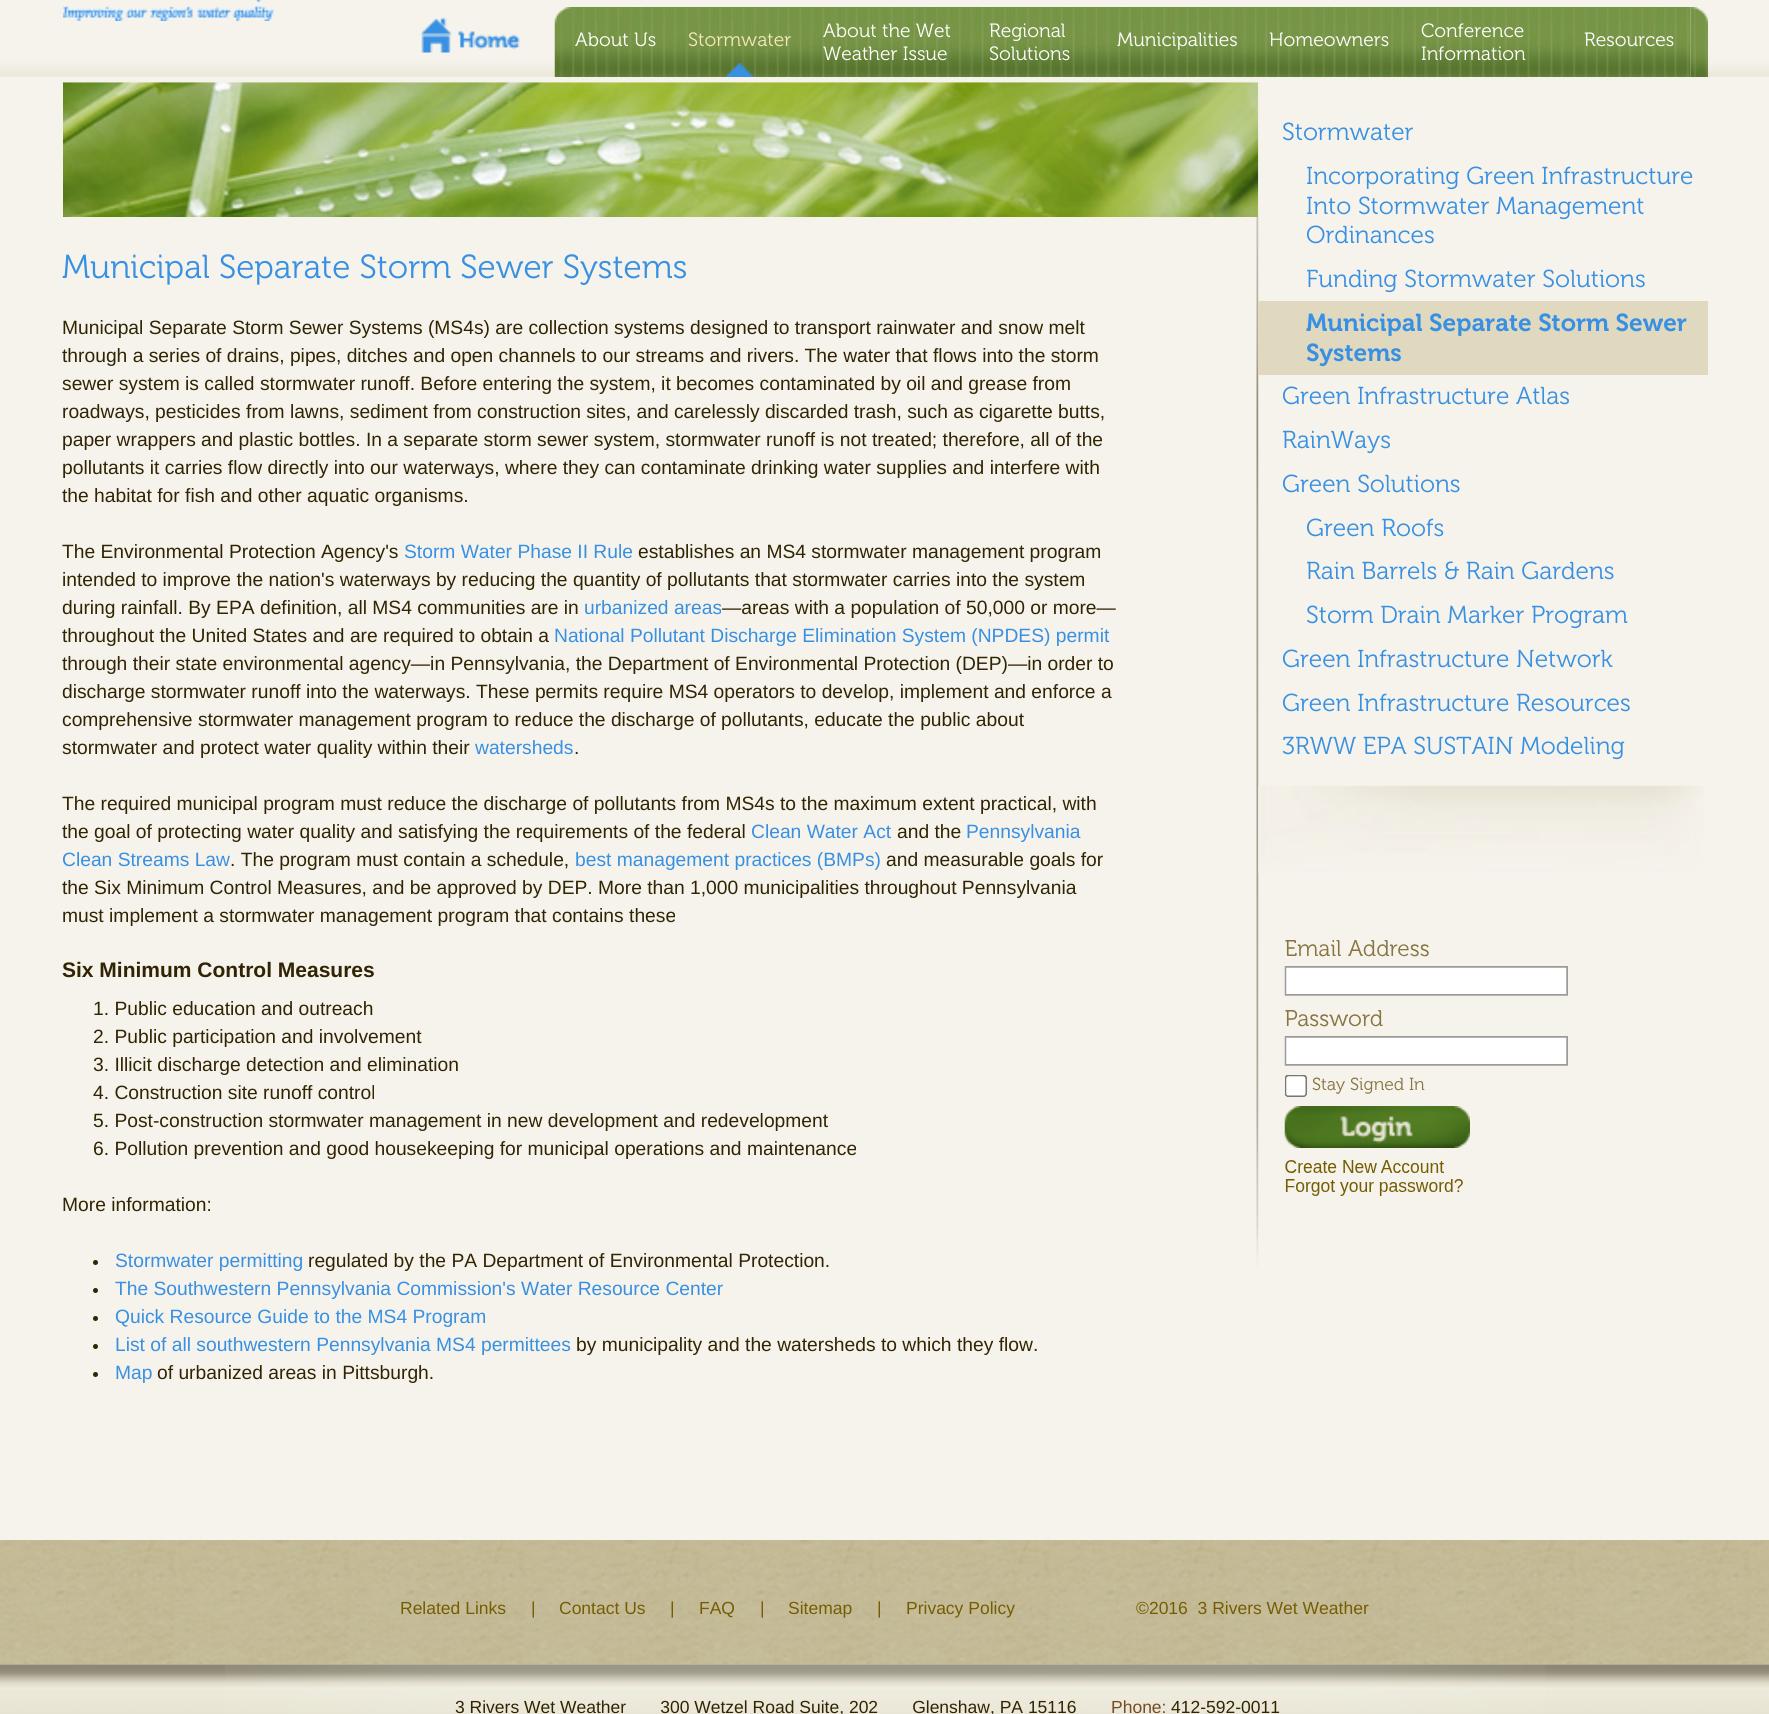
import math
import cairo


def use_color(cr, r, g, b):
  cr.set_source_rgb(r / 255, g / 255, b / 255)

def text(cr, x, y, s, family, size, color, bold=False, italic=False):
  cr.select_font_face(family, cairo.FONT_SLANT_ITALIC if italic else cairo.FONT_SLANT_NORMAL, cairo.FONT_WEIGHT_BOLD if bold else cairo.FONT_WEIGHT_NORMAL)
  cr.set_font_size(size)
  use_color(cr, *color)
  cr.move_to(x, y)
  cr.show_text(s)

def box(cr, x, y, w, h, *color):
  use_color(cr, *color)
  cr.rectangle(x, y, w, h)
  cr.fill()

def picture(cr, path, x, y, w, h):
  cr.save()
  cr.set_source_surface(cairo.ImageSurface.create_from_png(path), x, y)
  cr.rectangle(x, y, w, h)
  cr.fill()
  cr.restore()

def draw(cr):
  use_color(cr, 255, 255, 255)
  cr.paint()
  picture(cr, "img_01.png", 0, 0, 1769, 77)
  picture(cr, "img_02.png", 63, 0, 211, 21)
  picture(cr, "img_03.png", 421, 17, 99, 36)
  picture(cr, "img_04.png", 554, 7, 20, 70)
  picture(cr, "img_05.png", 574, 7, 1117, 70)
  picture(cr, "img_06.png", 726, 63, 29, 14)
  picture(cr, "img_07.png", 1690, 7, 18, 70)
  box(cr, 0, 77, 1769, 1463, 245, 243, 235)
  picture(cr, "img_08.png", 63, 82, 1196, 135)
  picture(cr, "img_09.png", 1256, 217, 3, 1050)
  use_color(cr, 49, 36, 2)
  cr.arc(95.5, 1262.5, 2.5, 0, 2 * math.pi)
  cr.fill()
  cr.arc(95.5, 1290.5, 2.5, 0, 2 * math.pi)
  cr.fill()
  cr.arc(95.5, 1318.5, 2.5, 0, 2 * math.pi)
  cr.fill()
  cr.arc(95.5, 1346.5, 2.5, 0, 2 * math.pi)
  cr.fill()
  cr.arc(95.5, 1374.5, 2.5, 0, 2 * math.pi)
  cr.fill()
  picture(cr, "img_10.png", 1258, 785, 446, 89)
  box(cr, 1258, 301, 450, 74, 224, 217, 192)
  picture(cr, "img_11.png", 1284, 940, 284, 256)
  picture(cr, "img_13.png", 0, 1664, 1769, 50)
  picture(cr, "img_14.png", 225, 1664, 1321, 50)
  picture(cr, "img_12.png", 0, 1540, 1769, 125)
  text(cr, 575, 46, "About Us", "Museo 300 Light", 19.25, (255, 255, 255))
  text(cr, 688, 46, "Stormwater", "Museo 300 Light", 19.25, (245, 232, 184))
  text(cr, 823, 37, "About the Wet", "Museo 300 Light", 19.25, (255, 255, 255))
  text(cr, 823, 60, "Weather Issue", "Museo 300 Light", 19.25, (255, 255, 255))
  text(cr, 989, 37, "Regional", "Museo 300 Light", 19.25, (255, 255, 255))
  text(cr, 989, 60, "Solutions", "Museo 300 Light", 19.25, (255, 255, 255))
  text(cr, 1117, 46, "Municipalities", "Museo 300 Light", 19.25, (255, 255, 255))
  text(cr, 1269, 46, "Homeowners", "Museo 300 Light", 19.25, (255, 255, 255))
  text(cr, 1421, 37, "Conference", "Museo 300 Light", 19.25, (255, 255, 255))
  text(cr, 1421, 60, "Information", "Museo 300 Light", 19.25, (255, 255, 255))
  text(cr, 1584, 46, "Resources", "Museo 300 Light", 19.25, (255, 255, 255))
  text(cr, 62, 278, "Municipal Separate Storm Sewer Systems", "Museo 300 Light", 33.25, (56, 144, 226))
  text(cr, 62, 334, "Municipal Separate Storm Sewer Systems (MS4s) are collection systems designed to transport rainwater and snow melt", "Liberation Sans", 19.25, (49, 36, 2))
  text(cr, 62, 362, "through a series of drains, pipes, ditches and open channels to our streams and rivers. The water that flows into the storm", "Liberation Sans", 19.25, (49, 36, 2))
  text(cr, 62, 390, "sewer system is called stormwater runoff. Before entering the system, it becomes contaminated by oil and grease from", "Liberation Sans", 19.25, (49, 36, 2))
  text(cr, 62, 418, "roadways, pesticides from lawns, sediment from construction sites, and carelessly discarded trash, such as cigarette butts,", "Liberation Sans", 19.25, (49, 36, 2))
  text(cr, 62, 446, "paper wrappers and plastic bottles. In a separate storm sewer system, stormwater runoff is not treated; therefore, all of the", "Liberation Sans", 19.25, (49, 36, 2))
  text(cr, 62, 474, "pollutants it carries flow directly into our waterways, where they can contaminate drinking water supplies and interfere with", "Liberation Sans", 19.25, (49, 36, 2))
  text(cr, 62, 502, "the habitat for fish and other aquatic organisms.", "Liberation Sans", 19.25, (49, 36, 2))
  text(cr, 62, 558, "The Environmental Protection Agency's", "Liberation Sans", 19.25, (49, 36, 2))
  text(cr, 404, 558, "Storm Water Phase II Rule", "Liberation Sans", 19.25, (56, 144, 226))
  text(cr, 638, 558, "establishes an MS4 stormwater management program", "Liberation Sans", 19.25, (49, 36, 2))
  text(cr, 62, 586, "intended to improve the nation's waterways by reducing the quantity of pollutants that stormwater carries into the system", "Liberation Sans", 19.25, (49, 36, 2))
  text(cr, 62, 614, "during rainfall. By EPA definition, all MS4 communities are in", "Liberation Sans", 19.25, (49, 36, 2))
  text(cr, 584, 614, "urbanized areas", "Liberation Sans", 19.25, (56, 144, 226))
  text(cr, 722, 614, "—areas with a population of 50,000 or more—", "Liberation Sans", 19.25, (49, 36, 2))
  text(cr, 62, 642, "throughout the United States and are required to obtain a", "Liberation Sans", 19.25, (49, 36, 2))
  text(cr, 554, 642, "National Pollutant Discharge Elimination System (NPDES) permit", "Liberation Sans", 19.25, (56, 144, 226))
  text(cr, 62, 670, "through their state environmental agency—in Pennsylvania, the Department of Environmental Protection (DEP)—in order to", "Liberation Sans", 19.25, (49, 36, 2))
  text(cr, 62, 698, "discharge stormwater runoff into the waterways. These permits require MS4 operators to develop, implement and enforce a", "Liberation Sans", 19.25, (49, 36, 2))
  text(cr, 62, 726, "comprehensive stormwater management program to reduce the discharge of pollutants, educate the public about", "Liberation Sans", 19.25, (49, 36, 2))
  text(cr, 62, 754, "stormwater and protect water quality within their", "Liberation Sans", 19.25, (49, 36, 2))
  text(cr, 475, 754, "watersheds", "Liberation Sans", 19.25, (56, 144, 226))
  text(cr, 574, 754, ".", "Liberation Sans", 19.25, (49, 36, 2))
  text(cr, 62, 810, "The required municipal program must reduce the discharge of pollutants from MS4s to the maximum extent practical, with", "Liberation Sans", 19.25, (49, 36, 2))
  text(cr, 62, 838, "the goal of protecting water quality and satisfying the requirements of the federal", "Liberation Sans", 19.25, (49, 36, 2))
  text(cr, 751, 838, "Clean Water Act", "Liberation Sans", 19.25, (56, 144, 226))
  text(cr, 897, 838, "and the", "Liberation Sans", 19.25, (49, 36, 2))
  text(cr, 966, 838, "Pennsylvania", "Liberation Sans", 19.25, (56, 144, 226))
  text(cr, 62, 866, "Clean Streams Law", "Liberation Sans", 19.25, (56, 144, 226))
  text(cr, 230, 866, ". The program must contain a schedule,", "Liberation Sans", 19.25, (49, 36, 2))
  text(cr, 575, 866, "best management practices (BMPs)", "Liberation Sans", 19.25, (56, 144, 226))
  text(cr, 886, 866, "and measurable goals for", "Liberation Sans", 19.25, (49, 36, 2))
  text(cr, 62, 894, "the Six Minimum Control Measures, and be approved by DEP. More than 1,000 municipalities throughout Pennsylvania", "Liberation Sans", 19.25, (49, 36, 2))
  text(cr, 62, 922, "must implement a stormwater management program that contains these", "Liberation Sans", 19.25, (49, 36, 2))
  text(cr, 62, 977, "Six Minimum Control Measures", "Liberation Sans", 21, (49, 36, 2), bold=True)
  text(cr, 93, 1015, "1. Public education and outreach", "Liberation Sans", 19.25, (49, 36, 2))
  text(cr, 93, 1043, "2. Public participation and involvement", "Liberation Sans", 19.25, (49, 36, 2))
  text(cr, 93, 1071, "3. Illicit discharge detection and elimination", "Liberation Sans", 19.25, (49, 36, 2))
  text(cr, 93, 1099, "4. Construction site runoff control", "Liberation Sans", 19.25, (49, 36, 2))
  text(cr, 93, 1127, "5. Post-construction stormwater management in new development and redevelopment", "Liberation Sans", 19.25, (49, 36, 2))
  text(cr, 93, 1155, "6. Pollution prevention and good housekeeping for municipal operations and maintenance", "Liberation Sans", 19.25, (49, 36, 2))
  text(cr, 62, 1211, "More information:", "Liberation Sans", 19.25, (49, 36, 2))
  text(cr, 115, 1267, "Stormwater permitting", "Liberation Sans", 19.25, (56, 144, 226))
  text(cr, 308, 1267, "regulated by the PA Department of Environmental Protection.", "Liberation Sans", 19.25, (49, 36, 2))
  text(cr, 115, 1295, "The Southwestern Pennsylvania Commission's Water Resource Center", "Liberation Sans", 19.25, (56, 144, 226))
  text(cr, 115, 1323, "Quick Resource Guide to the MS4 Program", "Liberation Sans", 19.25, (56, 144, 226))
  text(cr, 115, 1351, "List of all southwestern Pennsylvania MS4 permittees", "Liberation Sans", 19.25, (56, 144, 226))
  text(cr, 576, 1351, "by municipality and the watersheds to which they flow.", "Liberation Sans", 19.25, (49, 36, 2))
  text(cr, 115, 1379, "Map", "Liberation Sans", 19.25, (56, 144, 226))
  text(cr, 157, 1379, "of urbanized areas in Pittsburgh.", "Liberation Sans", 19.25, (49, 36, 2))
  text(cr, 1282, 140, "Stormwater", "Museo 300 Light", 24.5, (56, 144, 226))
  text(cr, 1306, 184, "Incorporating Green Infrastructure", "Museo 300 Light", 24.5, (56, 144, 226))
  text(cr, 1306, 214, "Into Stormwater Management", "Museo 300 Light", 24.5, (56, 144, 226))
  text(cr, 1306, 243, "Ordinances", "Museo 300 Light", 24.5, (56, 144, 226))
  text(cr, 1306, 287, "Funding Stormwater Solutions", "Museo 300 Light", 24.5, (56, 144, 226))
  text(cr, 1306, 331, "Municipal Separate Storm Sewer", "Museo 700 SemiBold", 24.5, (56, 144, 226))
  text(cr, 1306, 361, "Systems", "Museo 700 SemiBold", 24.5, (56, 144, 226))
  text(cr, 1282, 404, "Green Infrastructure Atlas", "Museo 300 Light", 24.5, (56, 144, 226))
  text(cr, 1282, 448, "RainWays", "Museo 300 Light", 24.5, (56, 144, 226))
  text(cr, 1282, 492, "Green Solutions", "Museo 300 Light", 24.5, (56, 144, 226))
  text(cr, 1306, 536, "Green Roofs", "Museo 300 Light", 24.5, (56, 144, 226))
  text(cr, 1306, 579, "Rain Barrels & Rain Gardens", "Museo 300 Light", 24.5, (56, 144, 226))
  text(cr, 1306, 623, "Storm Drain Marker Program", "Museo 300 Light", 24.5, (56, 144, 226))
  text(cr, 1282, 667, "Green Infrastructure Network", "Museo 300 Light", 24.5, (56, 144, 226))
  text(cr, 1282, 711, "Green Infrastructure Resources", "Museo 300 Light", 24.5, (56, 144, 226))
  text(cr, 1282, 754, "3RWW EPA SUSTAIN Modeling", "Museo 300 Light", 24.5, (56, 144, 226))
  text(cr, 400, 1614, "Related Links", "Liberation Sans", 17.5, (117, 93, 2))
  text(cr, 531, 1614, "|", "Liberation Sans", 17.5, (117, 93, 2))
  text(cr, 559, 1614, "Contact Us", "Liberation Sans", 17.5, (117, 93, 2))
  text(cr, 670, 1614, "|", "Liberation Sans", 17.5, (117, 93, 2))
  text(cr, 699, 1614, "FAQ", "Liberation Sans", 17.5, (117, 93, 2))
  text(cr, 760, 1614, "|", "Liberation Sans", 17.5, (117, 93, 2))
  text(cr, 788, 1614, "Sitemap", "Liberation Sans", 17.5, (117, 93, 2))
  text(cr, 877, 1614, "|", "Liberation Sans", 17.5, (117, 93, 2))
  text(cr, 906, 1614, "Privacy Policy", "Liberation Sans", 17.5, (117, 93, 2))
  text(cr, 1136, 1614, "©2016  3 Rivers Wet Weather", "Liberation Sans", 17.5, (117, 93, 2))
  text(cr, 455, 1713, "3 Rivers Wet Weather       300 Wetzel Road Suite, 202       Glenshaw, PA 15116", "Liberation Sans", 17.5, (49, 36, 2))
  text(cr, 1111, 1713, "Phone:", "Liberation Sans", 17.5, (117, 76, 36))
  text(cr, 1171, 1713, "412-592-0011", "Liberation Sans", 17.5, (49, 36, 2))


surface = cairo.ImageSurface(cairo.FORMAT_RGB24, 1769, 1714)
cr = cairo.Context(surface)
options = cairo.FontOptions()
options.set_hint_metrics(cairo.HINT_METRICS_OFF)
options.set_hint_style(cairo.HINT_STYLE_NONE)
cr.set_font_options(options)
cr.set_miter_limit(4)
draw(cr)
surface.write_to_png("out.png")
